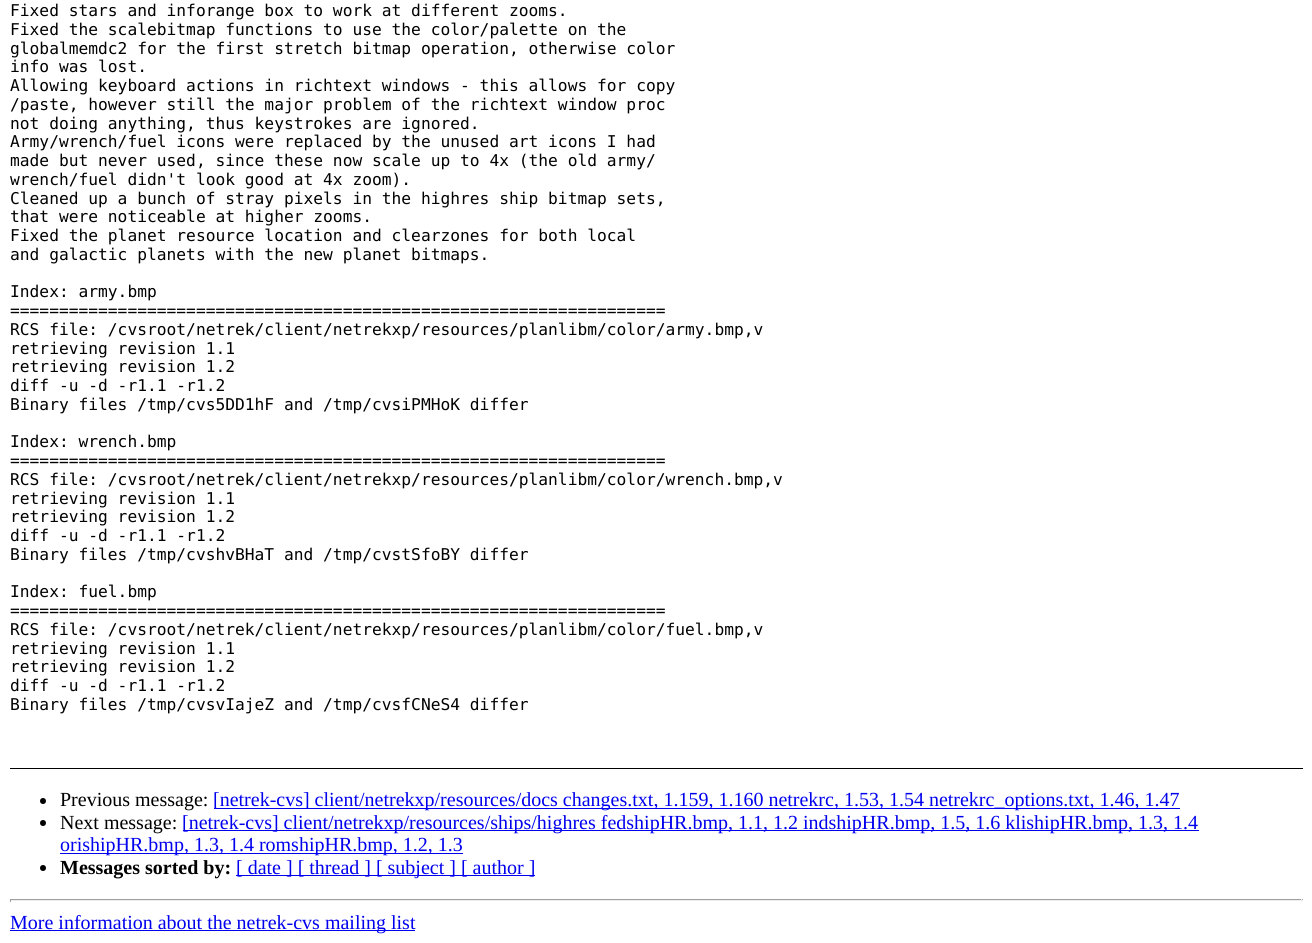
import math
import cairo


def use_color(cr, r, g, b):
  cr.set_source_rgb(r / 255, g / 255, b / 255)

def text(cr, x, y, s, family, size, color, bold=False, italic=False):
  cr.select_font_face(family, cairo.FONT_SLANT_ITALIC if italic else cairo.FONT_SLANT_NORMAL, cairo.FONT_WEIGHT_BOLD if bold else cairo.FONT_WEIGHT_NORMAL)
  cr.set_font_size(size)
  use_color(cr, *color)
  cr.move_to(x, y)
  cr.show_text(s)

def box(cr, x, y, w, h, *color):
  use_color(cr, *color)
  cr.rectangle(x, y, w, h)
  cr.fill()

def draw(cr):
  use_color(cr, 255, 255, 255)
  cr.paint()
  box(cr, 10, 768, 1293, 1, 0, 0, 0)
  cr.arc(43, 801, 3, 0, 2 * math.pi)
  cr.fill()
  box(cr, 214, 808, 966, 1, 0, 0, 238)
  use_color(cr, 0, 0, 0)
  cr.arc(43, 823, 3, 0, 2 * math.pi)
  cr.fill()
  box(cr, 183, 830, 1016, 1, 0, 0, 238)
  box(cr, 60, 853, 403, 1, 0, 0, 238)
  use_color(cr, 0, 0, 0)
  cr.arc(43, 868, 3, 0, 2 * math.pi)
  cr.fill()
  box(cr, 236, 875, 299, 1, 0, 0, 238)
  box(cr, 10, 899, 1293, 1, 159, 159, 159)
  box(cr, 1301, 899, 1, 3, 238, 238, 238)
  box(cr, 10, 900, 1293, 1, 238, 238, 238)
  box(cr, 10, 899, 1, 3, 159, 159, 159)
  box(cr, 10, 930, 405, 1, 0, 0, 238)
  text(cr, 10, 16, "Fixed stars and inforange box to work at different zooms.", "DejaVu Sans Mono", 16.25, (0, 0, 0))
  text(cr, 10, 35, "Fixed the scalebitmap functions to use the color/palette on the", "DejaVu Sans Mono", 16.25, (0, 0, 0))
  text(cr, 10, 54, "globalmemdc2 for the first stretch bitmap operation, otherwise color", "DejaVu Sans Mono", 16.25, (0, 0, 0))
  text(cr, 10, 72, "info was lost.", "DejaVu Sans Mono", 16.25, (0, 0, 0))
  text(cr, 10, 91, "Allowing keyboard actions in richtext windows - this allows for copy", "DejaVu Sans Mono", 16.25, (0, 0, 0))
  text(cr, 10, 110, "/paste, however still the major problem of the richtext window proc", "DejaVu Sans Mono", 16.25, (0, 0, 0))
  text(cr, 10, 129, "not doing anything, thus keystrokes are ignored.", "DejaVu Sans Mono", 16.25, (0, 0, 0))
  text(cr, 10, 147, "Army/wrench/fuel icons were replaced by the unused art icons I had", "DejaVu Sans Mono", 16.25, (0, 0, 0))
  text(cr, 10, 166, "made but never used, since these now scale up to 4x (the old army/", "DejaVu Sans Mono", 16.25, (0, 0, 0))
  text(cr, 10, 185, "wrench/fuel didn't look good at 4x zoom).", "DejaVu Sans Mono", 16.25, (0, 0, 0))
  text(cr, 10, 204, "Cleaned up a bunch of stray pixels in the highres ship bitmap sets,", "DejaVu Sans Mono", 16.25, (0, 0, 0))
  text(cr, 10, 222, "that were noticeable at higher zooms.", "DejaVu Sans Mono", 16.25, (0, 0, 0))
  text(cr, 10, 241, "Fixed the planet resource location and clearzones for both local", "DejaVu Sans Mono", 16.25, (0, 0, 0))
  text(cr, 10, 260, "and galactic planets with the new planet bitmaps.", "DejaVu Sans Mono", 16.25, (0, 0, 0))
  text(cr, 10, 297, "Index: army.bmp", "DejaVu Sans Mono", 16.25, (0, 0, 0))
  text(cr, 10, 316, "===================================================================", "DejaVu Sans Mono", 16.25, (0, 0, 0))
  text(cr, 10, 335, "RCS file: /cvsroot/netrek/client/netrekxp/resources/planlibm/color/army.bmp,v", "DejaVu Sans Mono", 16.25, (0, 0, 0))
  text(cr, 10, 354, "retrieving revision 1.1", "DejaVu Sans Mono", 16.25, (0, 0, 0))
  text(cr, 10, 372, "retrieving revision 1.2", "DejaVu Sans Mono", 16.25, (0, 0, 0))
  text(cr, 10, 391, "diff -u -d -r1.1 -r1.2", "DejaVu Sans Mono", 16.25, (0, 0, 0))
  text(cr, 10, 410, "Binary files /tmp/cvs5DD1hF and /tmp/cvsiPMHoK differ", "DejaVu Sans Mono", 16.25, (0, 0, 0))
  text(cr, 10, 447, "Index: wrench.bmp", "DejaVu Sans Mono", 16.25, (0, 0, 0))
  text(cr, 10, 466, "===================================================================", "DejaVu Sans Mono", 16.25, (0, 0, 0))
  text(cr, 10, 485, "RCS file: /cvsroot/netrek/client/netrekxp/resources/planlibm/color/wrench.bmp,v", "DejaVu Sans Mono", 16.25, (0, 0, 0))
  text(cr, 10, 504, "retrieving revision 1.1", "DejaVu Sans Mono", 16.25, (0, 0, 0))
  text(cr, 10, 522, "retrieving revision 1.2", "DejaVu Sans Mono", 16.25, (0, 0, 0))
  text(cr, 10, 541, "diff -u -d -r1.1 -r1.2", "DejaVu Sans Mono", 16.25, (0, 0, 0))
  text(cr, 10, 560, "Binary files /tmp/cvshvBHaT and /tmp/cvstSfoBY differ", "DejaVu Sans Mono", 16.25, (0, 0, 0))
  text(cr, 10, 597, "Index: fuel.bmp", "DejaVu Sans Mono", 16.25, (0, 0, 0))
  text(cr, 10, 616, "===================================================================", "DejaVu Sans Mono", 16.25, (0, 0, 0))
  text(cr, 10, 635, "RCS file: /cvsroot/netrek/client/netrekxp/resources/planlibm/color/fuel.bmp,v", "DejaVu Sans Mono", 16.25, (0, 0, 0))
  text(cr, 10, 654, "retrieving revision 1.1", "DejaVu Sans Mono", 16.25, (0, 0, 0))
  text(cr, 10, 672, "retrieving revision 1.2", "DejaVu Sans Mono", 16.25, (0, 0, 0))
  text(cr, 10, 691, "diff -u -d -r1.1 -r1.2", "DejaVu Sans Mono", 16.25, (0, 0, 0))
  text(cr, 10, 710, "Binary files /tmp/cvsvIajeZ and /tmp/cvsfCNeS4 differ", "DejaVu Sans Mono", 16.25, (0, 0, 0))
  text(cr, 60, 806, "Previous message:", "Liberation Serif", 20, (0, 0, 0))
  text(cr, 213, 806, "[netrek-cvs] client/netrekxp/resources/docs changes.txt, 1.159, 1.160 netrekrc, 1.53, 1.54 netrekrc_options.txt, 1.46, 1.47", "Liberation Serif", 20, (0, 0, 238))
  text(cr, 60, 829, "Next message:", "Liberation Serif", 20, (0, 0, 0))
  text(cr, 182, 829, "[netrek-cvs] client/netrekxp/resources/ships/highres fedshipHR.bmp, 1.1, 1.2 indshipHR.bmp, 1.5, 1.6 klishipHR.bmp, 1.3, 1.4", "Liberation Serif", 20, (0, 0, 238))
  text(cr, 60, 851, "orishipHR.bmp, 1.3, 1.4 romshipHR.bmp, 1.2, 1.3", "Liberation Serif", 20, (0, 0, 238))
  text(cr, 60, 874, "Messages sorted by:", "Liberation Serif", 20, (0, 0, 0), bold=True)
  text(cr, 236, 874, "[ date ] [ thread ] [ subject ] [ author ]", "Liberation Serif", 20, (0, 0, 238))
  text(cr, 10, 929, "More information about the netrek-cvs mailing list", "Liberation Serif", 20, (0, 0, 238))


surface = cairo.ImageSurface(cairo.FORMAT_RGB24, 1312, 943)
cr = cairo.Context(surface)
options = cairo.FontOptions()
options.set_hint_metrics(cairo.HINT_METRICS_OFF)
options.set_hint_style(cairo.HINT_STYLE_NONE)
cr.set_font_options(options)
cr.set_miter_limit(4)
draw(cr)
surface.write_to_png("out.png")
